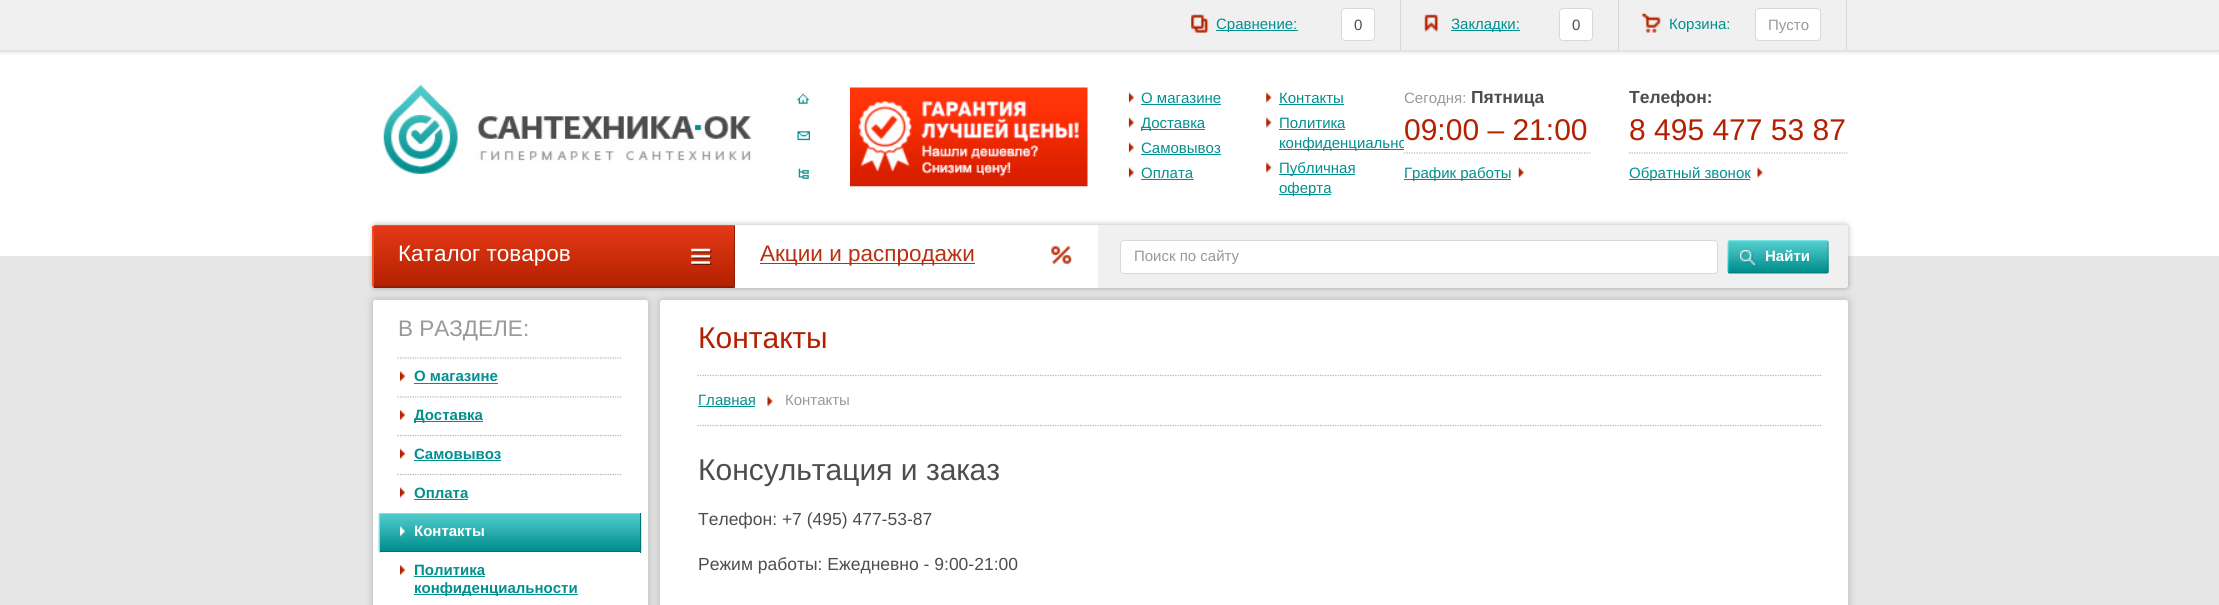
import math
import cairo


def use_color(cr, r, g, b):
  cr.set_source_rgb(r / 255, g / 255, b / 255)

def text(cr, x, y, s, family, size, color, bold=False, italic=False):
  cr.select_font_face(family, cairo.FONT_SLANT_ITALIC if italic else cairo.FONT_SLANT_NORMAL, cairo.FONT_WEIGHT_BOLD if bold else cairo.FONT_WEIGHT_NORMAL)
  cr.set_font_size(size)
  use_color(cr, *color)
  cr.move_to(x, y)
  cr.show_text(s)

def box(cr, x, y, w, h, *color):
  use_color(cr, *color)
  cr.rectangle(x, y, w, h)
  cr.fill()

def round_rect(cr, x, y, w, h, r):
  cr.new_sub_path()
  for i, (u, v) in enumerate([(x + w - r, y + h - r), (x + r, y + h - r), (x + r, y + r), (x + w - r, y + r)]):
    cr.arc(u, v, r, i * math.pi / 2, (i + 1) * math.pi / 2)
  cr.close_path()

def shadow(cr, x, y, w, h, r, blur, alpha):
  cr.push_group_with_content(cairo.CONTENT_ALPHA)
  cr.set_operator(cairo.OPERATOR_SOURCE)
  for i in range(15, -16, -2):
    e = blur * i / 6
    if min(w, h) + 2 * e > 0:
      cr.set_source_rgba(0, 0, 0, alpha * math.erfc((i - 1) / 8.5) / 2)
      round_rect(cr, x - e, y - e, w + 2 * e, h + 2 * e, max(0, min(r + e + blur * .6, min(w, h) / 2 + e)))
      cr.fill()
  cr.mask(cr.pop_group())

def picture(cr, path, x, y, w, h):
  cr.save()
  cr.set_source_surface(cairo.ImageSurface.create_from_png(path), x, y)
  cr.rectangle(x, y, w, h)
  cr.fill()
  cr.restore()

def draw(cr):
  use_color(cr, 230, 230, 230)
  cr.paint()
  box(cr, 0, 50, 2219, 206, 255, 255, 255)
  use_color(cr, 0, 0, 0)
  shadow(cr, 0, 0, 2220, 50, 0, 3, 0.3)
  box(cr, 0, 0, 2219, 50, 240, 240, 240)
  box(cr, 1400, 0, 1, 50, 216, 216, 216)
  picture(cr, "img_01.png", 1191, 14, 18, 19)
  box(cr, 1216, 30, 82, 1, 2, 143, 143)
  use_color(cr, 255, 255, 255)
  round_rect(cr, 1341.5, 8.5, 33, 32, 3.5)
  cr.fill_preserve()
  use_color(cr, 217, 217, 217)
  cr.set_line_width(1)
  cr.stroke()
  box(cr, 1618, 0, 1, 50, 216, 216, 216)
  picture(cr, "img_02.png", 1424, 14, 15, 18)
  box(cr, 1451, 30, 69, 1, 2, 143, 143)
  use_color(cr, 255, 255, 255)
  round_rect(cr, 1559.5, 8.5, 33, 32, 3.5)
  cr.fill_preserve()
  use_color(cr, 217, 217, 217)
  cr.stroke()
  box(cr, 1846, 0, 1, 50, 216, 216, 216)
  picture(cr, "img_03.png", 1642, 13, 19, 20)
  use_color(cr, 255, 255, 255)
  round_rect(cr, 1755.5, 8.5, 65, 32, 3.5)
  cr.fill_preserve()
  use_color(cr, 217, 217, 217)
  cr.stroke()
  picture(cr, "img_04.png", 383, 83, 369, 91)
  picture(cr, "img_05.png", 797, 93, 12, 11)
  picture(cr, "img_06.png", 797, 131, 13, 10)
  picture(cr, "img_07.png", 798, 168, 11, 11)
  picture(cr, "img_08.png", 850, 87, 238, 100)
  picture(cr, "img_09.png", 1128, 92, 6, 11)
  box(cr, 1141, 104, 80, 1, 2, 143, 143)
  picture(cr, "img_09.png", 1128, 117, 6, 11)
  box(cr, 1141, 129, 64, 1, 2, 143, 143)
  picture(cr, "img_09.png", 1128, 142, 6, 11)
  box(cr, 1141, 154, 80, 1, 2, 143, 143)
  picture(cr, "img_09.png", 1128, 167, 6, 11)
  box(cr, 1141, 179, 53, 1, 2, 143, 143)
  picture(cr, "img_10.png", 1266, 92, 6, 11)
  box(cr, 1279, 104, 65, 1, 2, 143, 143)
  picture(cr, "img_10.png", 1266, 117, 6, 11)
  box(cr, 1279, 129, 66, 1, 2, 143, 143)
  box(cr, 1279, 149, 125, 1, 2, 143, 143)
  picture(cr, "img_10.png", 1266, 162, 6, 11)
  box(cr, 1279, 174, 76, 1, 2, 143, 143)
  box(cr, 1279, 194, 52, 1, 2, 143, 143)
  cr.new_path()
  cr.move_to(1404, 153)
  cr.line_to(1591, 153)
  use_color(cr, 179, 179, 179)
  cr.set_line_width(1.2)
  cr.set_dash([1.25, 1.25])
  cr.stroke()
  box(cr, 1404, 179, 107, 1, 2, 143, 143)
  picture(cr, "img_11.png", 1518, 167, 6, 11)
  cr.new_path()
  cr.move_to(1629, 153)
  cr.line_to(1847.5, 153)
  use_color(cr, 179, 179, 179)
  cr.stroke()
  box(cr, 1629, 179, 121, 1, 2, 143, 143)
  picture(cr, "img_12.png", 1757, 167, 6, 11)
  use_color(cr, 0, 0, 0)
  shadow(cr, 373, 225, 1475, 63, 2.5, 3, 0.3)
  use_color(cr, 178, 178, 178)
  shadow(cr, 660, 300, 1188, 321, 2.5, 4.5, 1)
  use_color(cr, 255, 255, 255)
  round_rect(cr, 660, 300, 1188, 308, 2.5)
  cr.fill()
  use_color(cr, 178, 178, 178)
  shadow(cr, 373, 300, 275, 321, 2.5, 4.5, 1)
  use_color(cr, 240, 240, 240)
  round_rect(cr, 373, 225, 1475, 63, 2.5)
  cr.fill()
  gradient = cairo.LinearGradient(554, 226, 554, 286)
  gradient.add_color_stop_rgba(0, 0.898, 0.224, 0.09, 1)
  gradient.add_color_stop_rgba(1, 0.702, 0.129, 0, 1)
  cr.set_source(gradient)
  cr.rectangle(373, 226, 361, 60)
  cr.fill()
  use_color(cr, 241, 82, 33)
  cr.new_path()
  cr.move_to(375, 225)
  cr.line_to(373, 226)
  cr.line_to(374, 227)
  cr.line_to(375, 226)
  cr.line_to(734, 226)
  cr.line_to(735, 225)
  cr.close_path()
  cr.fill()
  use_color(cr, 145, 27, 0)
  cr.new_path()
  cr.move_to(735, 225)
  cr.line_to(734, 226)
  cr.line_to(734, 286)
  cr.line_to(735, 288)
  cr.close_path()
  cr.fill()
  cr.new_path()
  cr.move_to(735, 288)
  cr.line_to(374, 288)
  cr.line_to(373, 287)
  cr.line_to(374, 286)
  cr.line_to(734, 286)
  cr.close_path()
  cr.fill()
  use_color(cr, 241, 82, 33)
  cr.new_path()
  cr.move_to(372, 226)
  cr.line_to(373, 226)
  cr.line_to(374, 227)
  cr.curve_to(372, 229, 374, 234, 374, 237)
  cr.line_to(374, 286)
  cr.line_to(373, 287)
  cr.line_to(372, 286)
  cr.close_path()
  cr.fill()
  picture(cr, "img_13.png", 691, 248, 21, 17)
  box(cr, 735, 225, 363, 63, 255, 255, 255)
  picture(cr, "img_14.png", 1051, 246, 21, 18)
  box(cr, 760, 263, 215, 1, 184, 48, 17)
  use_color(cr, 255, 255, 255)
  round_rect(cr, 1120.5, 240.5, 597, 33, 3.5)
  cr.fill_preserve()
  use_color(cr, 217, 217, 217)
  cr.set_line_width(1)
  cr.set_dash([])
  cr.stroke()
  picture(cr, "img_15.png", 1727, 240, 102, 34)
  picture(cr, "img_16.png", 1740, 250, 17, 17)
  use_color(cr, 255, 255, 255)
  round_rect(cr, 373, 300, 275, 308, 2.5)
  cr.fill()
  cr.new_path()
  cr.move_to(397.5, 358)
  cr.line_to(622.5, 358)
  use_color(cr, 179, 179, 179)
  cr.set_line_width(1.2)
  cr.set_dash([1.25, 1.25])
  cr.stroke()
  picture(cr, "img_17.png", 400, 371, 5, 11)
  box(cr, 414, 383, 84, 1, 2, 143, 143)
  cr.new_path()
  cr.move_to(397.5, 397)
  cr.line_to(622.5, 397)
  use_color(cr, 179, 179, 179)
  cr.stroke()
  picture(cr, "img_18.png", 400, 410, 5, 10)
  box(cr, 414, 421, 69, 1, 2, 143, 143)
  cr.new_path()
  cr.move_to(397.5, 435.5)
  cr.line_to(622.5, 435.5)
  use_color(cr, 179, 179, 179)
  cr.stroke()
  picture(cr, "img_19.png", 400, 448, 5, 11)
  box(cr, 414, 460, 87, 1, 2, 143, 143)
  cr.new_path()
  cr.move_to(397.5, 474.5)
  cr.line_to(622.5, 474.5)
  use_color(cr, 179, 179, 179)
  cr.stroke()
  picture(cr, "img_20.png", 400, 487, 5, 11)
  box(cr, 414, 499, 54, 1, 2, 143, 143)
  picture(cr, "img_21.png", 378, 513, 264, 39)
  box(cr, 379, 513, 262, 1, 118, 227, 227)
  box(cr, 640, 513, 1, 40, 1, 113, 113)
  box(cr, 379, 551, 262, 1, 1, 113, 113)
  box(cr, 379, 513, 1, 40, 118, 227, 227)
  picture(cr, "img_18.png", 400, 565, 5, 10)
  box(cr, 414, 576, 71, 1, 2, 143, 143)
  box(cr, 414, 594, 164, 1, 2, 143, 143)
  cr.new_path()
  cr.move_to(697.5, 375.5)
  cr.line_to(1822.5, 375.5)
  use_color(cr, 179, 179, 179)
  cr.stroke()
  cr.new_path()
  cr.move_to(697.5, 425.5)
  cr.line_to(1822.5, 425.5)
  cr.stroke()
  picture(cr, "img_22.png", 767, 396, 6, 11)
  box(cr, 698, 406, 57, 1, 2, 143, 143)
  text(cr, 1216, 29, "Сравнение:", "Liberation Sans", 15, (2, 143, 143))
  text(cr, 1354, 30, "0", "Liberation Sans", 15, (77, 77, 77))
  text(cr, 1451, 29, "Закладки:", "Liberation Sans", 15, (2, 143, 143))
  text(cr, 1572, 30, "0", "Liberation Sans", 15, (77, 77, 77))
  text(cr, 1669, 29, "Корзина:", "Liberation Sans", 15, (2, 143, 143))
  text(cr, 1768, 30, "Пусто", "Liberation Sans", 15, (153, 153, 153))
  text(cr, 1141, 103, "О магазине", "Liberation Sans", 15, (2, 143, 143))
  text(cr, 1141, 128, "Доставка", "Liberation Sans", 15, (2, 143, 143))
  text(cr, 1141, 153, "Самовывоз", "Liberation Sans", 15, (2, 143, 143))
  text(cr, 1141, 178, "Оплата", "Liberation Sans", 15, (2, 143, 143))
  text(cr, 1279, 103, "Контакты", "Liberation Sans", 15, (2, 143, 143))
  text(cr, 1279, 128, "Политика", "Liberation Sans", 15, (2, 143, 143))
  cr.save()
  cr.rectangle(1129, 88, 275, 115)
  cr.clip()
  text(cr, 1279, 148, "конфиденциально", "Liberation Sans", 15, (2, 143, 143))
  cr.restore()
  text(cr, 1279, 173, "Публичная", "Liberation Sans", 15, (2, 143, 143))
  text(cr, 1279, 193, "оферта", "Liberation Sans", 15, (2, 143, 143))
  text(cr, 1404, 103, "Сегодня:", "Liberation Sans", 15, (153, 153, 153))
  text(cr, 1471, 103, "Пятница", "Liberation Sans", 17.5, (77, 77, 77), bold=True)
  text(cr, 1404, 140, "09:00 – 21:00", "Liberation Sans", 30, (179, 33, 0))
  text(cr, 1404, 178, "График работы", "Liberation Sans", 15, (2, 143, 143))
  text(cr, 1629, 103, "Телефон:", "Liberation Sans", 17.5, (77, 77, 77), bold=True)
  text(cr, 1629, 140, "8 495 477 53 87", "Liberation Sans", 30, (179, 33, 0))
  text(cr, 1629, 178, "Обратный звонок", "Liberation Sans", 15, (2, 143, 143))
  text(cr, 398, 261, "Каталог товаров", "Liberation Sans", 22.5, (255, 255, 255))
  text(cr, 760, 261, "Акции и распродажи", "Liberation Sans", 22.5, (184, 48, 17))
  text(cr, 1134, 261, "Поиск по сайту", "Liberation Sans", 15, (153, 153, 153))
  text(cr, 1765, 261, "Найти", "Liberation Sans", 15, (255, 255, 255), bold=True)
  text(cr, 398, 336, "В РАЗДЕЛЕ:", "Liberation Sans", 22.5, (153, 153, 153))
  text(cr, 414, 381, "О магазине", "Liberation Sans", 15, (2, 143, 143), bold=True)
  text(cr, 414, 420, "Доставка", "Liberation Sans", 15, (2, 143, 143), bold=True)
  text(cr, 414, 459, "Самовывоз", "Liberation Sans", 15, (2, 143, 143), bold=True)
  text(cr, 414, 498, "Оплата", "Liberation Sans", 15, (2, 143, 143), bold=True)
  text(cr, 414, 536, "Контакты", "Liberation Sans", 15, (255, 255, 255), bold=True)
  text(cr, 414, 575, "Политика", "Liberation Sans", 15, (2, 143, 143), bold=True)
  text(cr, 414, 593, "конфиденциальности", "Liberation Sans", 15, (2, 143, 143), bold=True)
  text(cr, 698, 348, "Контакты", "Liberation Sans", 30, (179, 33, 0))
  text(cr, 698, 405, "Главная", "Liberation Sans", 15, (2, 143, 143))
  text(cr, 785, 405, "Контакты", "Liberation Sans", 15, (153, 153, 153))
  text(cr, 698, 480, "Консультация и заказ", "Liberation Sans", 30, (77, 77, 77))
  text(cr, 698, 525, "Телефон: +7 (495) 477-53-87", "Liberation Sans", 17.5, (77, 77, 77))
  text(cr, 698, 570, "Режим работы: Ежедневно - 9:00-21:00", "Liberation Sans", 17.5, (77, 77, 77))


surface = cairo.ImageSurface(cairo.FORMAT_RGB24, 2219, 605)
cr = cairo.Context(surface)
options = cairo.FontOptions()
options.set_hint_metrics(cairo.HINT_METRICS_OFF)
options.set_hint_style(cairo.HINT_STYLE_NONE)
cr.set_font_options(options)
cr.set_miter_limit(4)
draw(cr)
surface.write_to_png("out.png")
